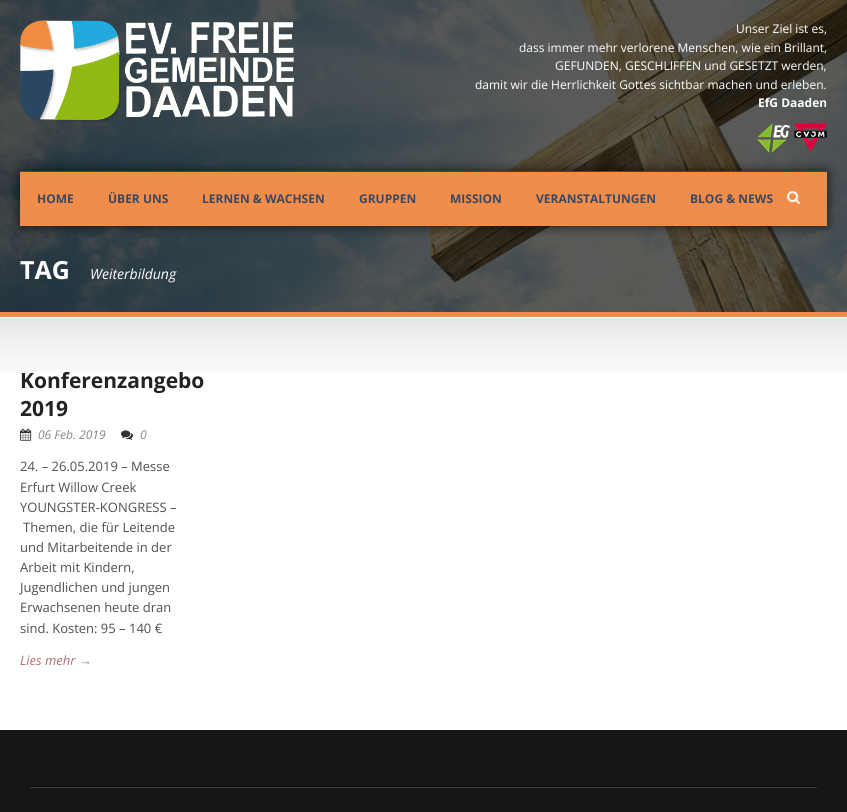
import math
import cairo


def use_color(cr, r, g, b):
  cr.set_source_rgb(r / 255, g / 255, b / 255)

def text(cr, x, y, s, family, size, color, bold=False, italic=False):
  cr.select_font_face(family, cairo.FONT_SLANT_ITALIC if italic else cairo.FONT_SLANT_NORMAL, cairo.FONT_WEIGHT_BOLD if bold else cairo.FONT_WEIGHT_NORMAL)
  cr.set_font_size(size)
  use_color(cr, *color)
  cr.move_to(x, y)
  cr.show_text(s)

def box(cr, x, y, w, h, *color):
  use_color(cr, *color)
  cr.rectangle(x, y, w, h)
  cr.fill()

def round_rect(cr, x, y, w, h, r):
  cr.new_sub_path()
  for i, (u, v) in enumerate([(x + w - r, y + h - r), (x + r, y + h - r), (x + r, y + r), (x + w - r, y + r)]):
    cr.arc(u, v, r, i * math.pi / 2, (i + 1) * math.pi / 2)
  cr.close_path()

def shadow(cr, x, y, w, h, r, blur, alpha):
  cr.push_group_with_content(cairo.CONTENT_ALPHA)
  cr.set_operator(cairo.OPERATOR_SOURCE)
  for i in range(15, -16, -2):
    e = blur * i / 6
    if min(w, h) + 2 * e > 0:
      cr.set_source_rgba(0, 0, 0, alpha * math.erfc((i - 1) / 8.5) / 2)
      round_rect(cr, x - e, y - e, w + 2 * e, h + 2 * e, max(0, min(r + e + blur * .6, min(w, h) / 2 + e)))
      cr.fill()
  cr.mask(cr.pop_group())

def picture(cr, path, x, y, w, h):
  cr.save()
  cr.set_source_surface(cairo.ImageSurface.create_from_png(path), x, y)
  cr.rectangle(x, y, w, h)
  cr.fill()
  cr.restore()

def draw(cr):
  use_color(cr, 255, 255, 255)
  cr.paint()
  picture(cr, "img_01.png", 0, 0, 847, 312)
  picture(cr, "img_02.png", 20, 20, 274, 102)
  picture(cr, "img_03.png", 757, 123, 70, 30)
  use_color(cr, 0, 0, 0)
  shadow(cr, 20, 171, 807, 55, 0, 6, 0.7)
  box(cr, 20, 172, 807, 54, 241, 141, 74)
  box(cr, 20, 171, 807, 1, 57, 71, 98)
  picture(cr, "img_04.png", 787, 191, 13, 13)
  box(cr, 0, 312, 847, 5, 241, 141, 74)
  picture(cr, "img_05.png", 0, 318, 847, 55)
  picture(cr, "img_06.png", 20, 428, 12, 13)
  picture(cr, "img_07.png", 121, 430, 12, 10)
  box(cr, 0, 730, 847, 82, 22, 22, 22)
  box(cr, 30, 786, 787, 1, 6, 6, 6)
  box(cr, 30, 787, 787, 1, 62, 62, 62)
  text(cr, 736, 33, "Unser Ziel ist es,", "Open Sans", 12, (255, 255, 255))
  text(cr, 519, 52, "dass immer mehr verlorene Menschen, wie ein Brillant,", "Open Sans", 12, (255, 255, 255))
  text(cr, 555, 70, "GEFUNDEN, GESCHLIFFEN und GESETZT werden,", "Open Sans", 12, (255, 255, 255))
  text(cr, 475, 89, "damit wir die Herrlichkeit Gottes sichtbar machen und erleben.", "Open Sans", 12, (255, 255, 255))
  text(cr, 758, 107, "EfG Daaden", "Open Sans", 12, (255, 255, 255), bold=True)
  text(cr, 37, 203, "HOME", "Open Sans", 12, (57, 71, 98), bold=True)
  text(cr, 108, 203, "ÜBER UNS", "Open Sans", 12, (57, 71, 98), bold=True)
  text(cr, 202, 203, "LERNEN & WACHSEN", "Open Sans", 12, (57, 71, 98), bold=True)
  text(cr, 359, 203, "GRUPPEN", "Open Sans", 12, (57, 71, 98), bold=True)
  text(cr, 450, 203, "MISSION", "Open Sans", 12, (57, 71, 98), bold=True)
  text(cr, 536, 203, "VERANSTALTUNGEN", "Open Sans", 12, (57, 71, 98), bold=True)
  text(cr, 690, 203, "BLOG & NEWS", "Open Sans", 12, (57, 71, 98), bold=True)
  text(cr, 20, 279, "TAG", "Open Sans", 25, (255, 255, 255), bold=True)
  text(cr, 90, 279, "Weiterbildung", "Open Sans", 14, (255, 255, 255), italic=True)
  text(cr, 20, 388, "Konferenzangebo", "Open Sans", 21, (35, 35, 35), bold=True)
  text(cr, 20, 416, "2019", "Open Sans", 21, (35, 35, 35), bold=True)
  text(cr, 38, 439, "06 Feb. 2019", "Open Sans", 12, (135, 135, 135), italic=True)
  text(cr, 140, 439, "0", "Open Sans", 12, (135, 135, 135), italic=True)
  text(cr, 20, 471, "24. – 26.05.2019 – Messe", "Open Sans", 13, (80, 80, 80))
  text(cr, 20, 492, "Erfurt Willow Creek", "Open Sans", 13, (80, 80, 80))
  text(cr, 20, 512, "YOUNGSTER-KONGRESS –", "Open Sans", 13, (80, 80, 80))
  text(cr, 23, 532, "Themen, die für Leitende", "Open Sans", 13, (80, 80, 80))
  text(cr, 20, 552, "und Mitarbeitende in der", "Open Sans", 13, (80, 80, 80))
  text(cr, 20, 572, "Arbeit mit Kindern,", "Open Sans", 13, (80, 80, 80))
  text(cr, 20, 592, "Jugendlichen und jungen", "Open Sans", 13, (80, 80, 80))
  text(cr, 20, 612, "Erwachsenen heute dran", "Open Sans", 13, (80, 80, 80))
  text(cr, 20, 633, "sind. Kosten: 95 – 140 €", "Open Sans", 13, (80, 80, 80))
  text(cr, 20, 665, "Lies mehr", "Open Sans", 13, (175, 112, 112), italic=True)
  text(cr, 79, 665, "→", "Liberation Serif", 13, (175, 112, 112), italic=True)


surface = cairo.ImageSurface(cairo.FORMAT_RGB24, 847, 812)
cr = cairo.Context(surface)
options = cairo.FontOptions()
options.set_hint_metrics(cairo.HINT_METRICS_OFF)
options.set_hint_style(cairo.HINT_STYLE_NONE)
cr.set_font_options(options)
cr.set_miter_limit(4)
draw(cr)
surface.write_to_png("out.png")
